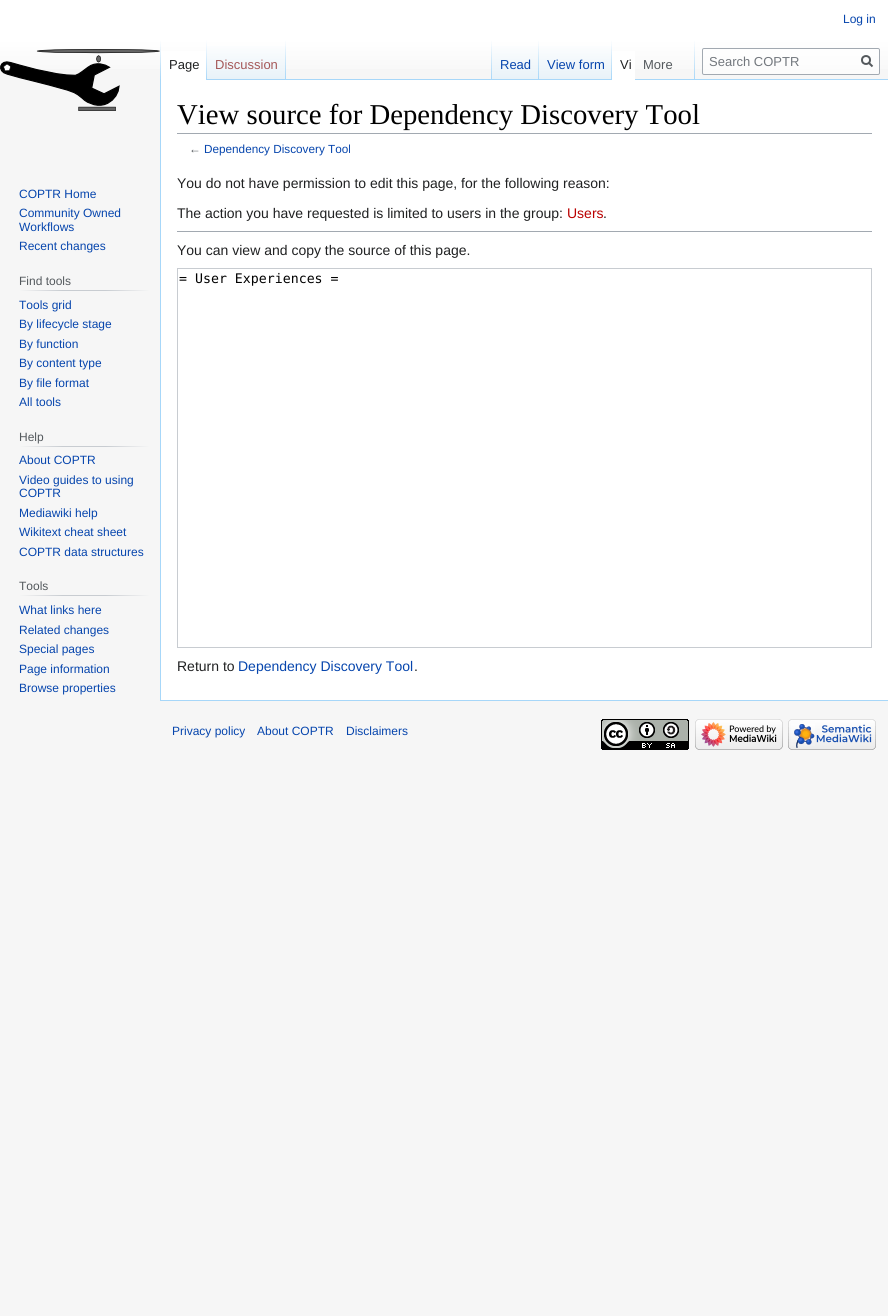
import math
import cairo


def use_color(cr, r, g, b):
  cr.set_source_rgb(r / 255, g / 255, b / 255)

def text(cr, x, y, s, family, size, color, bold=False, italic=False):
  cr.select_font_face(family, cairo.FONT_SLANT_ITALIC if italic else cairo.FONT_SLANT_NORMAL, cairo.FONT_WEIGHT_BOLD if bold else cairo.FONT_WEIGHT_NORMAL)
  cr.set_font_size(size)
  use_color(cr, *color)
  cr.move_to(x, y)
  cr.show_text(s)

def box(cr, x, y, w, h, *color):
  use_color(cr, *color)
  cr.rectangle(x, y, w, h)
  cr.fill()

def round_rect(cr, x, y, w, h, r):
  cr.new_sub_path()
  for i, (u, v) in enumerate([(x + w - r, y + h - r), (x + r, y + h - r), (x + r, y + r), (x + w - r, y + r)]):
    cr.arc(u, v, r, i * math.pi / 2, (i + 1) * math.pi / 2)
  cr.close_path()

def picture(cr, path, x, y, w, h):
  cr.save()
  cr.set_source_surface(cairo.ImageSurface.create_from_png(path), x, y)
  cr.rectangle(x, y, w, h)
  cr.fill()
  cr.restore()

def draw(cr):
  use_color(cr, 246, 246, 246)
  cr.paint()
  gradient = cairo.LinearGradient(444, 0, 444, 80)
  gradient.add_color_stop_rgba(0.5, 1, 1, 1, 1)
  gradient.add_color_stop_rgba(1, 0.965, 0.965, 0.965, 1)
  cr.set_source(gradient)
  cr.rectangle(0, 0, 888, 69)
  cr.fill()
  box(cr, 160, 700, 728, 1, 167, 215, 249)
  box(cr, 160, 79, 1, 622, 167, 215, 249)
  gradient = cairo.LinearGradient(161, 40, 161, 80)
  gradient.add_color_stop_rgba(0, 0.655, 0.843, 0.976, 0)
  gradient.add_color_stop_rgba(1, 0.655, 0.843, 0.976, 1)
  cr.set_source(gradient)
  cr.rectangle(160, 40, 1, 40)
  cr.fill()
  box(cr, 161, 51, 45, 29, 255, 255, 255)
  gradient = cairo.LinearGradient(207, 40, 207, 80)
  gradient.add_color_stop_rgba(0, 1, 1, 1, 1)
  gradient.add_color_stop_rgba(1, 0.655, 0.843, 0.976, 1)
  cr.set_source(gradient)
  cr.rectangle(206, 40, 1, 40)
  cr.fill()
  gradient = cairo.LinearGradient(247, 80, 247, 40)
  gradient.add_color_stop_rgba(0, 0.467, 0.757, 0.965, 1)
  gradient.add_color_stop_rgba(0.03, 0.91, 0.949, 0.973, 1)
  gradient.add_color_stop_rgba(1, 1, 1, 1, 1)
  cr.set_source(gradient)
  cr.rectangle(207, 46, 79, 34)
  cr.fill()
  gradient = cairo.LinearGradient(286, 40, 286, 80)
  gradient.add_color_stop_rgba(0, 0.655, 0.843, 0.976, 0)
  gradient.add_color_stop_rgba(1, 0.655, 0.843, 0.976, 1)
  cr.set_source(gradient)
  cr.rectangle(285, 40, 1, 40)
  cr.fill()
  box(cr, 286, 79, 602, 1, 167, 215, 249)
  gradient = cairo.LinearGradient(492, 40, 492, 80)
  gradient.add_color_stop_rgba(0, 0.655, 0.843, 0.976, 0)
  gradient.add_color_stop_rgba(1, 0.655, 0.843, 0.976, 1)
  cr.set_source(gradient)
  cr.rectangle(491, 40, 1, 40)
  cr.fill()
  gradient = cairo.LinearGradient(516, 80, 516, 40)
  gradient.add_color_stop_rgba(0, 0.467, 0.757, 0.965, 1)
  gradient.add_color_stop_rgba(0.03, 0.91, 0.949, 0.973, 1)
  gradient.add_color_stop_rgba(1, 1, 1, 1, 1)
  cr.set_source(gradient)
  cr.rectangle(492, 46, 47, 33)
  cr.fill()
  gradient = cairo.LinearGradient(539, 40, 539, 80)
  gradient.add_color_stop_rgba(0, 0.655, 0.843, 0.976, 0)
  gradient.add_color_stop_rgba(1, 0.655, 0.843, 0.976, 1)
  cr.set_source(gradient)
  cr.rectangle(538, 40, 1, 40)
  cr.fill()
  gradient = cairo.LinearGradient(576, 80, 576, 40)
  gradient.add_color_stop_rgba(0, 0.467, 0.757, 0.965, 1)
  gradient.add_color_stop_rgba(0.03, 0.91, 0.949, 0.973, 1)
  gradient.add_color_stop_rgba(1, 1, 1, 1, 1)
  cr.set_source(gradient)
  cr.rectangle(539, 46, 73, 33)
  cr.fill()
  gradient = cairo.LinearGradient(612, 40, 612, 80)
  gradient.add_color_stop_rgba(0, 0.655, 0.843, 0.976, 0)
  gradient.add_color_stop_rgba(1, 0.655, 0.843, 0.976, 1)
  cr.set_source(gradient)
  cr.rectangle(611, 40, 1, 40)
  cr.fill()
  box(cr, 612, 51, 23, 29, 255, 255, 255)
  gradient = cairo.LinearGradient(695, 40, 695, 80)
  gradient.add_color_stop_rgba(0, 0.655, 0.843, 0.976, 0)
  gradient.add_color_stop_rgba(1, 0.655, 0.843, 0.976, 1)
  cr.set_source(gradient)
  cr.rectangle(694, 40, 1, 40)
  cr.fill()
  cr.set_source_rgba(1, 1, 1, 0.5)
  round_rect(cr, 702.5, 48.5, 177, 26, 1.5)
  cr.fill_preserve()
  use_color(cr, 162, 169, 177)
  cr.set_line_width(1)
  cr.stroke()
  cr.new_path()
  cr.move_to(872.5, 66.5)
  cr.line_to(868.5, 62.5)
  use_color(cr, 84, 89, 93)
  cr.set_line_width(2)
  cr.stroke()
  cr.arc(866, 60, 4, 0, 2 * math.pi)
  cr.stroke()
  picture(cr, "img_01.png", 0, 49, 160, 62)
  gradient = cairo.LinearGradient(19, 291, 150, 291)
  gradient.add_color_stop_rgba(0, 0.965, 0.965, 0.965, 1)
  gradient.add_color_stop_rgba(0.33, 0.784, 0.8, 0.82, 1)
  gradient.add_color_stop_rgba(0.66, 0.784, 0.8, 0.82, 1)
  gradient.add_color_stop_rgba(1, 0.965, 0.965, 0.965, 1)
  cr.set_source(gradient)
  cr.rectangle(19, 290, 131, 1)
  cr.fill()
  gradient = cairo.LinearGradient(19, 447, 150, 447)
  gradient.add_color_stop_rgba(0, 0.965, 0.965, 0.965, 1)
  gradient.add_color_stop_rgba(0.33, 0.784, 0.8, 0.82, 1)
  gradient.add_color_stop_rgba(0.66, 0.784, 0.8, 0.82, 1)
  gradient.add_color_stop_rgba(1, 0.965, 0.965, 0.965, 1)
  cr.set_source(gradient)
  cr.rectangle(19, 446, 131, 1)
  cr.fill()
  gradient = cairo.LinearGradient(19, 596, 150, 596)
  gradient.add_color_stop_rgba(0, 0.965, 0.965, 0.965, 1)
  gradient.add_color_stop_rgba(0.33, 0.784, 0.8, 0.82, 1)
  gradient.add_color_stop_rgba(0.66, 0.784, 0.8, 0.82, 1)
  gradient.add_color_stop_rgba(1, 0.965, 0.965, 0.965, 1)
  cr.set_source(gradient)
  cr.rectangle(19, 595, 131, 1)
  cr.fill()
  box(cr, 161, 80, 727, 620, 255, 255, 255)
  box(cr, 177, 133, 695, 1, 162, 169, 177)
  box(cr, 177, 231, 695, 1, 162, 169, 177)
  cr.rectangle(177.5, 268.5, 694, 379)
  use_color(cr, 200, 204, 209)
  cr.set_line_width(1)
  cr.stroke()
  picture(cr, "img_02.png", 601, 719, 88, 31)
  picture(cr, "img_03.png", 695, 719, 88, 31)
  picture(cr, "img_04.png", 788, 719, 88, 31)
  text(cr, 843, 23, "Log in", "Liberation Sans", 12, (6, 69, 173))
  text(cr, 169, 69, "Page", "Liberation Sans", 13, (32, 33, 34))
  text(cr, 215, 69, "Discussion", "Liberation Sans", 13, (165, 88, 88))
  text(cr, 500, 69, "Read", "Liberation Sans", 13, (6, 69, 173))
  text(cr, 547, 69, "View form", "Liberation Sans", 13, (6, 69, 173))
  text(cr, 620, 69, "Vi", "Liberation Sans", 13, (32, 33, 34))
  text(cr, 643, 69, "More", "Liberation Sans", 13, (84, 89, 93))
  text(cr, 709, 66, "Search COPTR", "Liberation Sans", 13, (114, 119, 125))
  text(cr, 19, 198, "COPTR Home", "Liberation Sans", 12, (6, 69, 173))
  text(cr, 19, 217, "Community Owned", "Liberation Sans", 12, (6, 69, 173))
  text(cr, 19, 231, "Workflows", "Liberation Sans", 12, (6, 69, 173))
  text(cr, 19, 250, "Recent changes", "Liberation Sans", 12, (6, 69, 173))
  text(cr, 19, 285, "Find tools", "Liberation Sans", 12, (84, 89, 93))
  text(cr, 19, 309, "Tools grid", "Liberation Sans", 12, (6, 69, 173))
  text(cr, 19, 328, "By lifecycle stage", "Liberation Sans", 12, (6, 69, 173))
  text(cr, 19, 348, "By function", "Liberation Sans", 12, (6, 69, 173))
  text(cr, 19, 367, "By content type", "Liberation Sans", 12, (6, 69, 173))
  text(cr, 19, 387, "By file format", "Liberation Sans", 12, (6, 69, 173))
  text(cr, 19, 406, "All tools", "Liberation Sans", 12, (6, 69, 173))
  text(cr, 19, 441, "Help", "Liberation Sans", 12, (84, 89, 93))
  text(cr, 19, 464, "About COPTR", "Liberation Sans", 12, (6, 69, 173))
  text(cr, 19, 484, "Video guides to using", "Liberation Sans", 12, (6, 69, 173))
  text(cr, 19, 497, "COPTR", "Liberation Sans", 12, (6, 69, 173))
  text(cr, 19, 517, "Mediawiki help", "Liberation Sans", 12, (6, 69, 173))
  text(cr, 19, 536, "Wikitext cheat sheet", "Liberation Sans", 12, (6, 69, 173))
  text(cr, 19, 556, "COPTR data structures", "Liberation Sans", 12, (6, 69, 173))
  text(cr, 19, 590, "Tools", "Liberation Sans", 12, (84, 89, 93))
  text(cr, 19, 614, "What links here", "Liberation Sans", 12, (6, 69, 173))
  text(cr, 19, 634, "Related changes", "Liberation Sans", 12, (6, 69, 173))
  text(cr, 19, 653, "Special pages", "Liberation Sans", 12, (6, 69, 173))
  text(cr, 19, 673, "Page information", "Liberation Sans", 12, (6, 69, 173))
  text(cr, 19, 692, "Browse properties", "Liberation Sans", 12, (6, 69, 173))
  text(cr, 177, 124, "View source for Dependency Discovery Tool", "Liberation Serif", 28.75, (0, 0, 0))
  text(cr, 189, 153, "←", "Liberation Sans", 11.75, (84, 89, 93))
  text(cr, 204, 153, "Dependency Discovery Tool", "Liberation Sans", 11.75, (6, 69, 173))
  text(cr, 177, 188, "You do not have permission to edit this page, for the following reason:", "Liberation Sans", 14, (32, 33, 34))
  text(cr, 177, 218, "The action you have requested is limited to users in the group:", "Liberation Sans", 14, (32, 33, 34))
  text(cr, 567, 218, "Users", "Liberation Sans", 14, (186, 0, 0))
  text(cr, 603, 218, ".", "Liberation Sans", 14, (32, 33, 34))
  text(cr, 177, 255, "You can view and copy the source of this page.", "Liberation Sans", 14, (32, 33, 34))
  text(cr, 179, 283, "= User Experiences =", "DejaVu Sans Mono", 13.25, (0, 0, 0))
  text(cr, 177, 671, "Return to", "Liberation Sans", 14, (32, 33, 34))
  text(cr, 238, 671, "Dependency Discovery Tool", "Liberation Sans", 14, (6, 69, 173))
  text(cr, 414, 671, ".", "Liberation Sans", 14, (32, 33, 34))
  text(cr, 172, 735, "Privacy policy", "Liberation Sans", 12, (6, 69, 173))
  text(cr, 257, 735, "About COPTR", "Liberation Sans", 12, (6, 69, 173))
  text(cr, 346, 735, "Disclaimers", "Liberation Sans", 12, (6, 69, 173))


surface = cairo.ImageSurface(cairo.FORMAT_RGB24, 888, 1316)
cr = cairo.Context(surface)
options = cairo.FontOptions()
options.set_hint_metrics(cairo.HINT_METRICS_OFF)
options.set_hint_style(cairo.HINT_STYLE_NONE)
cr.set_font_options(options)
cr.set_miter_limit(4)
draw(cr)
surface.write_to_png("out.png")
